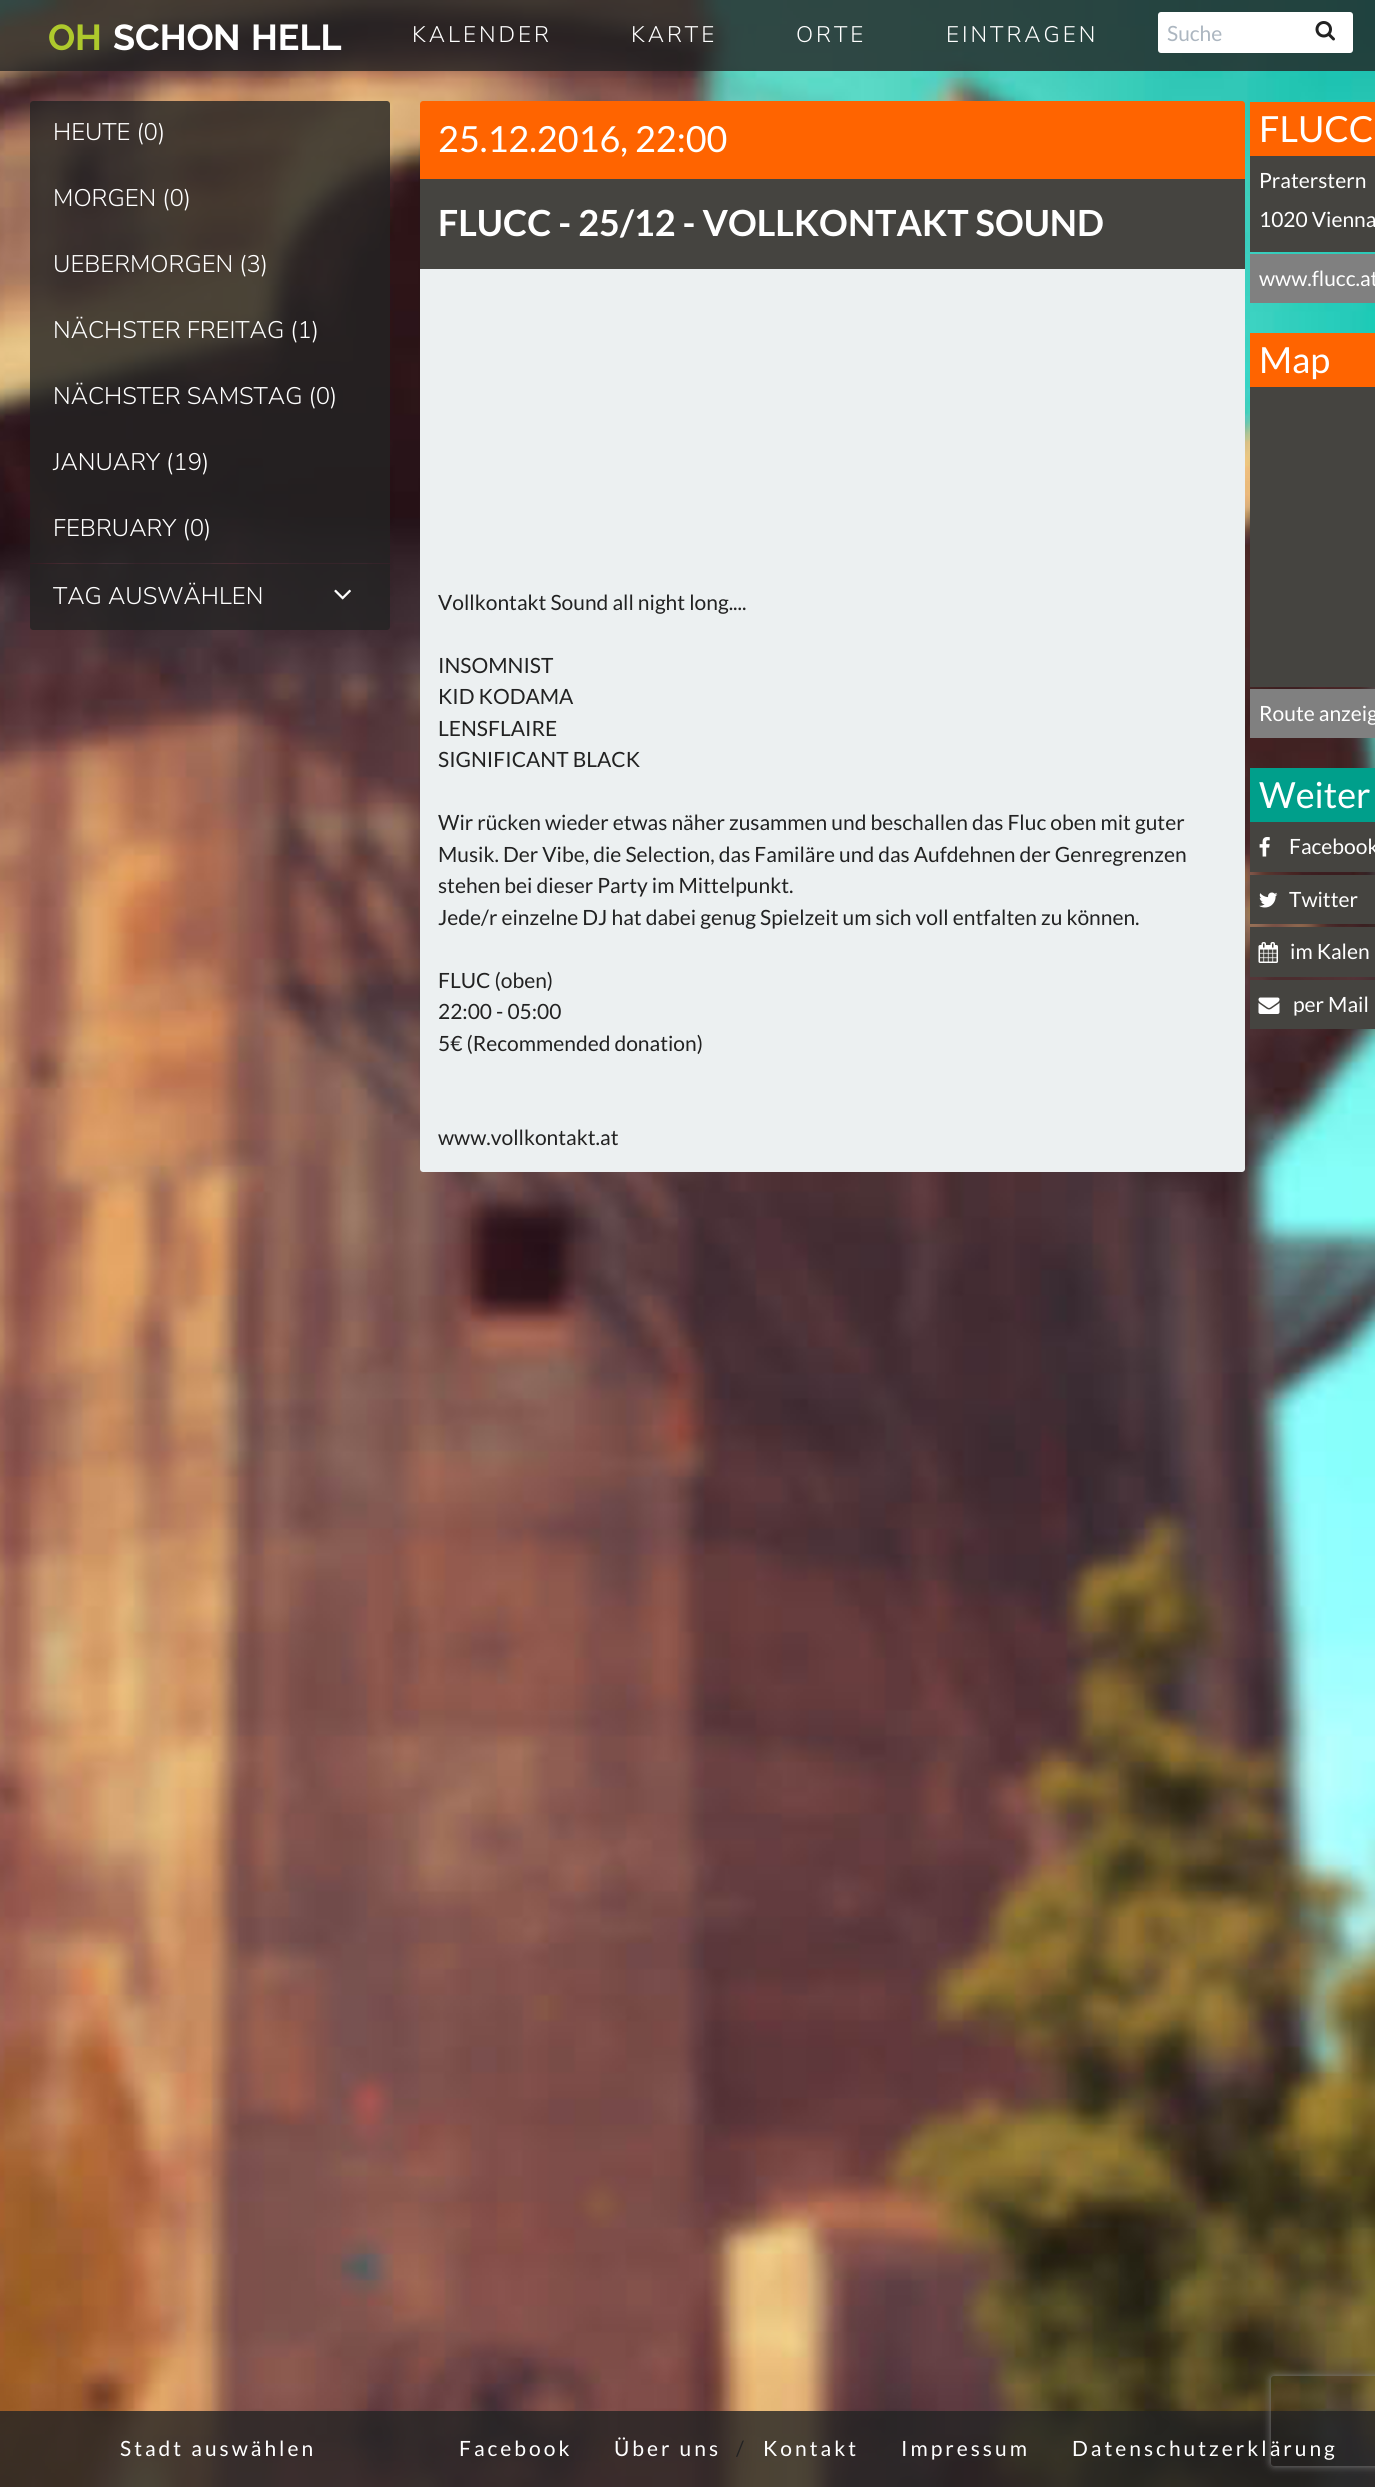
import math
import cairo


def use_color(cr, r, g, b):
  cr.set_source_rgb(r / 255, g / 255, b / 255)

def text(cr, x, y, s, family, size, color, bold=False, italic=False):
  cr.select_font_face(family, cairo.FONT_SLANT_ITALIC if italic else cairo.FONT_SLANT_NORMAL, cairo.FONT_WEIGHT_BOLD if bold else cairo.FONT_WEIGHT_NORMAL)
  cr.set_font_size(size)
  use_color(cr, *color)
  cr.move_to(x, y)
  cr.show_text(s)

def spaced_text(cr, x, y, s, letter, word):
  cr.move_to(x, y)
  for ch in s:
    cr.show_text(ch)
    cr.rel_move_to(letter + word * (ch == ' '), 0)

def box(cr, x, y, w, h, *color):
  use_color(cr, *color)
  cr.rectangle(x, y, w, h)
  cr.fill()

def round_rect(cr, x, y, w, h, r):
  cr.new_sub_path()
  for i, (u, v) in enumerate([(x + w - r, y + h - r), (x + r, y + h - r), (x + r, y + r), (x + w - r, y + r)]):
    cr.arc(u, v, r, i * math.pi / 2, (i + 1) * math.pi / 2)
  cr.close_path()

def shadow(cr, x, y, w, h, r, blur, alpha):
  cr.push_group_with_content(cairo.CONTENT_ALPHA)
  cr.set_operator(cairo.OPERATOR_SOURCE)
  for i in range(15, -16, -2):
    e = blur * i / 6
    if min(w, h) + 2 * e > 0:
      cr.set_source_rgba(0, 0, 0, alpha * math.erfc((i - 1) / 8.5) / 2)
      round_rect(cr, x - e, y - e, w + 2 * e, h + 2 * e, max(0, min(r + e + blur * .6, min(w, h) / 2 + e)))
      cr.fill()
  cr.mask(cr.pop_group())

def picture(cr, path, x, y, w, h):
  cr.save()
  cr.set_source_surface(cairo.ImageSurface.create_from_png(path), x, y)
  cr.rectangle(x, y, w, h)
  cr.fill()
  cr.restore()

def draw(cr):
  use_color(cr, 255, 255, 255)
  cr.paint()
  picture(cr, "img_01.png", 0, 0, 1375, 2487)
  cr.set_source_rgba(0.141, 0.141, 0.141, 0.8)
  cr.rectangle(0, 0, 1375, 71)
  cr.fill()
  use_color(cr, 255, 255, 255)
  round_rect(cr, 1158, 12, 195, 41, 3)
  cr.fill()
  picture(cr, "img_02.png", 1315, 21, 20, 20)
  cr.set_source_rgba(0.141, 0.141, 0.141, 0.8)
  cr.new_path()
  cr.move_to(33, 101)
  cr.line_to(387, 101)
  cr.curve_to(388.5, 101, 390, 102.5, 390, 104)
  cr.line_to(390, 167)
  cr.line_to(30, 167)
  cr.line_to(30, 104)
  cr.curve_to(30, 102.5, 31.5, 101, 33, 101)
  cr.close_path()
  cr.fill()
  cr.rectangle(30, 167, 360, 66)
  cr.fill()
  cr.rectangle(30, 233, 360, 66)
  cr.fill()
  cr.rectangle(30, 299, 360, 66)
  cr.fill()
  cr.rectangle(30, 365, 360, 66)
  cr.fill()
  cr.rectangle(30, 431, 360, 66)
  cr.fill()
  cr.rectangle(30, 497, 360, 66)
  cr.fill()
  cr.new_path()
  cr.move_to(30, 564)
  cr.line_to(390, 564)
  cr.line_to(390, 627)
  cr.curve_to(390, 628.5, 388.5, 630, 387, 630)
  cr.line_to(33, 630)
  cr.curve_to(31.5, 630, 30, 628.5, 30, 627)
  cr.close_path()
  cr.fill()
  picture(cr, "img_03.png", 334, 589, 17, 11)
  use_color(cr, 255, 100, 0)
  cr.new_path()
  cr.move_to(423, 101)
  cr.line_to(1242, 101)
  cr.curve_to(1243.5, 101, 1245, 102.5, 1245, 104)
  cr.line_to(1245, 269)
  cr.line_to(420, 269)
  cr.line_to(420, 104)
  cr.curve_to(420, 102.5, 421.5, 101, 423, 101)
  cr.close_path()
  cr.fill()
  box(cr, 420, 179, 825, 90, 69, 68, 64)
  box(cr, 420, 269, 825, 300, 236, 240, 241)
  cr.new_path()
  cr.move_to(420, 569)
  cr.line_to(1245, 569)
  cr.line_to(1245, 1169)
  cr.curve_to(1245, 1170.5, 1243.5, 1172, 1242, 1172)
  cr.line_to(423, 1172)
  cr.curve_to(421.5, 1172, 420, 1170.5, 420, 1169)
  cr.close_path()
  cr.fill()
  box(cr, 1250, 102, 125, 54, 255, 100, 0)
  box(cr, 1250, 156, 125, 96, 69, 68, 64)
  box(cr, 1250, 254, 125, 49, 128, 128, 128)
  box(cr, 1250, 333, 125, 54, 255, 100, 0)
  box(cr, 1250, 387, 125, 300, 69, 68, 64)
  box(cr, 1250, 689, 125, 49, 128, 128, 128)
  box(cr, 1250, 768, 125, 54, 0, 159, 139)
  box(cr, 1250, 822, 125, 50, 69, 68, 64)
  picture(cr, "img_04.png", 1259, 837, 11, 20)
  box(cr, 1250, 875, 125, 49, 69, 68, 64)
  picture(cr, "img_05.png", 1259, 892, 19, 16)
  box(cr, 1250, 927, 125, 50, 69, 68, 64)
  picture(cr, "img_06.png", 1258, 942, 20, 21)
  box(cr, 1250, 980, 125, 49, 69, 68, 64)
  picture(cr, "img_07.png", 1258, 997, 22, 17)
  cr.set_source_rgba(0.141, 0.141, 0.141, 0.8)
  cr.rectangle(0, 2411, 1375, 76)
  cr.fill()
  cr.save()
  cr.set_fill_rule(cairo.FILL_RULE_EVEN_ODD)
  cr.new_path()
  cr.move_to(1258, 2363)
  cr.line_to(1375, 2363)
  cr.line_to(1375, 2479)
  cr.line_to(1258, 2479)
  cr.close_path()
  cr.move_to(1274, 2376)
  cr.line_to(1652, 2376)
  cr.curve_to(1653.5, 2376, 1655, 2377.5, 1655, 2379)
  cr.line_to(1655, 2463)
  cr.curve_to(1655, 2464.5, 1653.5, 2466, 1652, 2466)
  cr.line_to(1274, 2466)
  cr.curve_to(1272.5, 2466, 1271, 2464.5, 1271, 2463)
  cr.line_to(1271, 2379)
  cr.curve_to(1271, 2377.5, 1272.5, 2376, 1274, 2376)
  cr.close_path()
  cr.clip()
  use_color(cr, 128, 128, 128)
  shadow(cr, 1271, 2376, 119, 90, 3, 4, 1)
  cr.restore()
  text(cr, 48, 50, "O", "Raleway Thin", 36, (174, 201, 44))
  spaced_text(cr, 75, 50, "H", 10, 0)
  text(cr, 113, 50, "SCHO", "Raleway Thin", 36, (255, 255, 255))
  spaced_text(cr, 213, 50, "N", 10, 0)
  text(cr, 251, 50, "HELL", "Raleway Thin", 36, (255, 255, 255))
  cr.select_font_face("Nunito Sans Light")
  cr.set_font_size(22.5)
  spaced_text(cr, 412, 42, "KALENDER", 3, 0)
  spaced_text(cr, 631, 42, "KARTE", 3, 0)
  spaced_text(cr, 796, 42, "ORTE", 3, 0)
  spaced_text(cr, 946, 42, "EINTRAGEN", 3, 0)
  text(cr, 1167, 41, "Suche", "Lato", 21, (172, 182, 192))
  text(cr, 53, 140, "HEUTE (0)", "Nunito Sans Light", 24, (255, 255, 255))
  text(cr, 53, 206, "MORGEN (0)", "Nunito Sans Light", 24, (255, 255, 255))
  text(cr, 53, 272, "UEBERMORGEN (3)", "Nunito Sans Light", 24, (255, 255, 255))
  text(cr, 53, 338, "NÄCHSTER FREITAG (1)", "Nunito Sans Light", 24, (255, 255, 255))
  text(cr, 53, 404, "NÄCHSTER SAMSTAG (0)", "Nunito Sans Light", 24, (255, 255, 255))
  text(cr, 53, 470, "JANUARY (19)", "Nunito Sans Light", 24, (255, 255, 255))
  text(cr, 53, 536, "FEBRUARY (0)", "Nunito Sans Light", 24, (255, 255, 255))
  text(cr, 53, 604, "TAG AUSWÄHLEN", "Nunito Sans Light", 24, (255, 255, 255))
  text(cr, 438, 152, "25.12.2016, 22:00", "Lato", 36, (255, 255, 255))
  text(cr, 438, 236, "FLUCC - 25/12 - VOLLKONTAKT SOUND", "Lato", 36, (255, 255, 255), bold=True)
  text(cr, 438, 610, "Vollkontakt Sound all night long....", "Lato", 21, (34, 34, 34))
  text(cr, 438, 673, "INSOMNIST", "Lato", 21, (34, 34, 34))
  text(cr, 438, 704, "KID KODAMA", "Lato", 21, (34, 34, 34))
  text(cr, 438, 736, "LENSFLAIRE", "Lato", 21, (34, 34, 34))
  text(cr, 438, 767, "SIGNIFICANT BLACK", "Lato", 21, (34, 34, 34))
  text(cr, 438, 830, "Wir rücken wieder etwas näher zusammen und beschallen das Fluc oben mit guter", "Lato", 21, (34, 34, 34))
  text(cr, 438, 862, "Musik. Der Vibe, die Selection, das Familäre und das Aufdehnen der Genregrenzen", "Lato", 21, (34, 34, 34))
  text(cr, 438, 893, "stehen bei dieser Party im Mittelpunkt.", "Lato", 21, (34, 34, 34))
  text(cr, 438, 925, "Jede/r einzelne DJ hat dabei genug Spielzeit um sich voll entfalten zu können.", "Lato", 21, (34, 34, 34))
  text(cr, 438, 988, "FLUC (oben)", "Lato", 21, (34, 34, 34))
  text(cr, 438, 1019, "22:00 - 05:00", "Lato", 21, (34, 34, 34))
  text(cr, 438, 1051, "5€ (Recommended donation)", "Lato", 21, (34, 34, 34))
  text(cr, 438, 1145, "www.vollkontakt.at", "Lato", 21, (34, 34, 34))
  text(cr, 1259, 142, "FLUCC", "Lato", 36, (255, 255, 255))
  text(cr, 1259, 188, "Praterstern", "Lato", 21, (255, 255, 255))
  text(cr, 1259, 227, "1020 Vienna", "Lato", 21, (255, 255, 255))
  text(cr, 1259, 286, "www.flucc.at", "Lato", 21, (255, 255, 255))
  text(cr, 1259, 373, "Map", "Lato", 36, (255, 255, 255))
  text(cr, 1259, 721, "Route anzeig", "Lato", 21, (255, 255, 255))
  text(cr, 1259, 808, "Weiter", "Lato", 36, (255, 255, 255))
  text(cr, 1289, 854, "Facebook", "Lato", 21, (255, 255, 255))
  text(cr, 1289, 907, "Twitter", "Lato", 21, (255, 255, 255))
  text(cr, 1290, 959, "im Kalen", "Lato", 21, (255, 255, 255))
  text(cr, 1293, 1012, "per Mail", "Lato", 21, (255, 255, 255))
  spaced_text(cr, 120, 2456, "Stadt auswählen", 3, 0)
  spaced_text(cr, 459, 2456, "Facebook", 3, 0)
  spaced_text(cr, 614, 2456, "Über uns", 3, 0)
  text(cr, 736, 2456, "/", "Lato", 21, (34, 34, 34))
  use_color(cr, 255, 255, 255)
  spaced_text(cr, 763, 2456, "Kontakt", 3, 0)
  spaced_text(cr, 901, 2456, "Impressum", 3, 0)
  spaced_text(cr, 1072, 2456, "Datenschutzerklärung", 3, 0)


surface = cairo.ImageSurface(cairo.FORMAT_RGB24, 1375, 2487)
cr = cairo.Context(surface)
options = cairo.FontOptions()
options.set_hint_metrics(cairo.HINT_METRICS_OFF)
options.set_hint_style(cairo.HINT_STYLE_NONE)
cr.set_font_options(options)
cr.set_miter_limit(4)
draw(cr)
surface.write_to_png("out.png")
